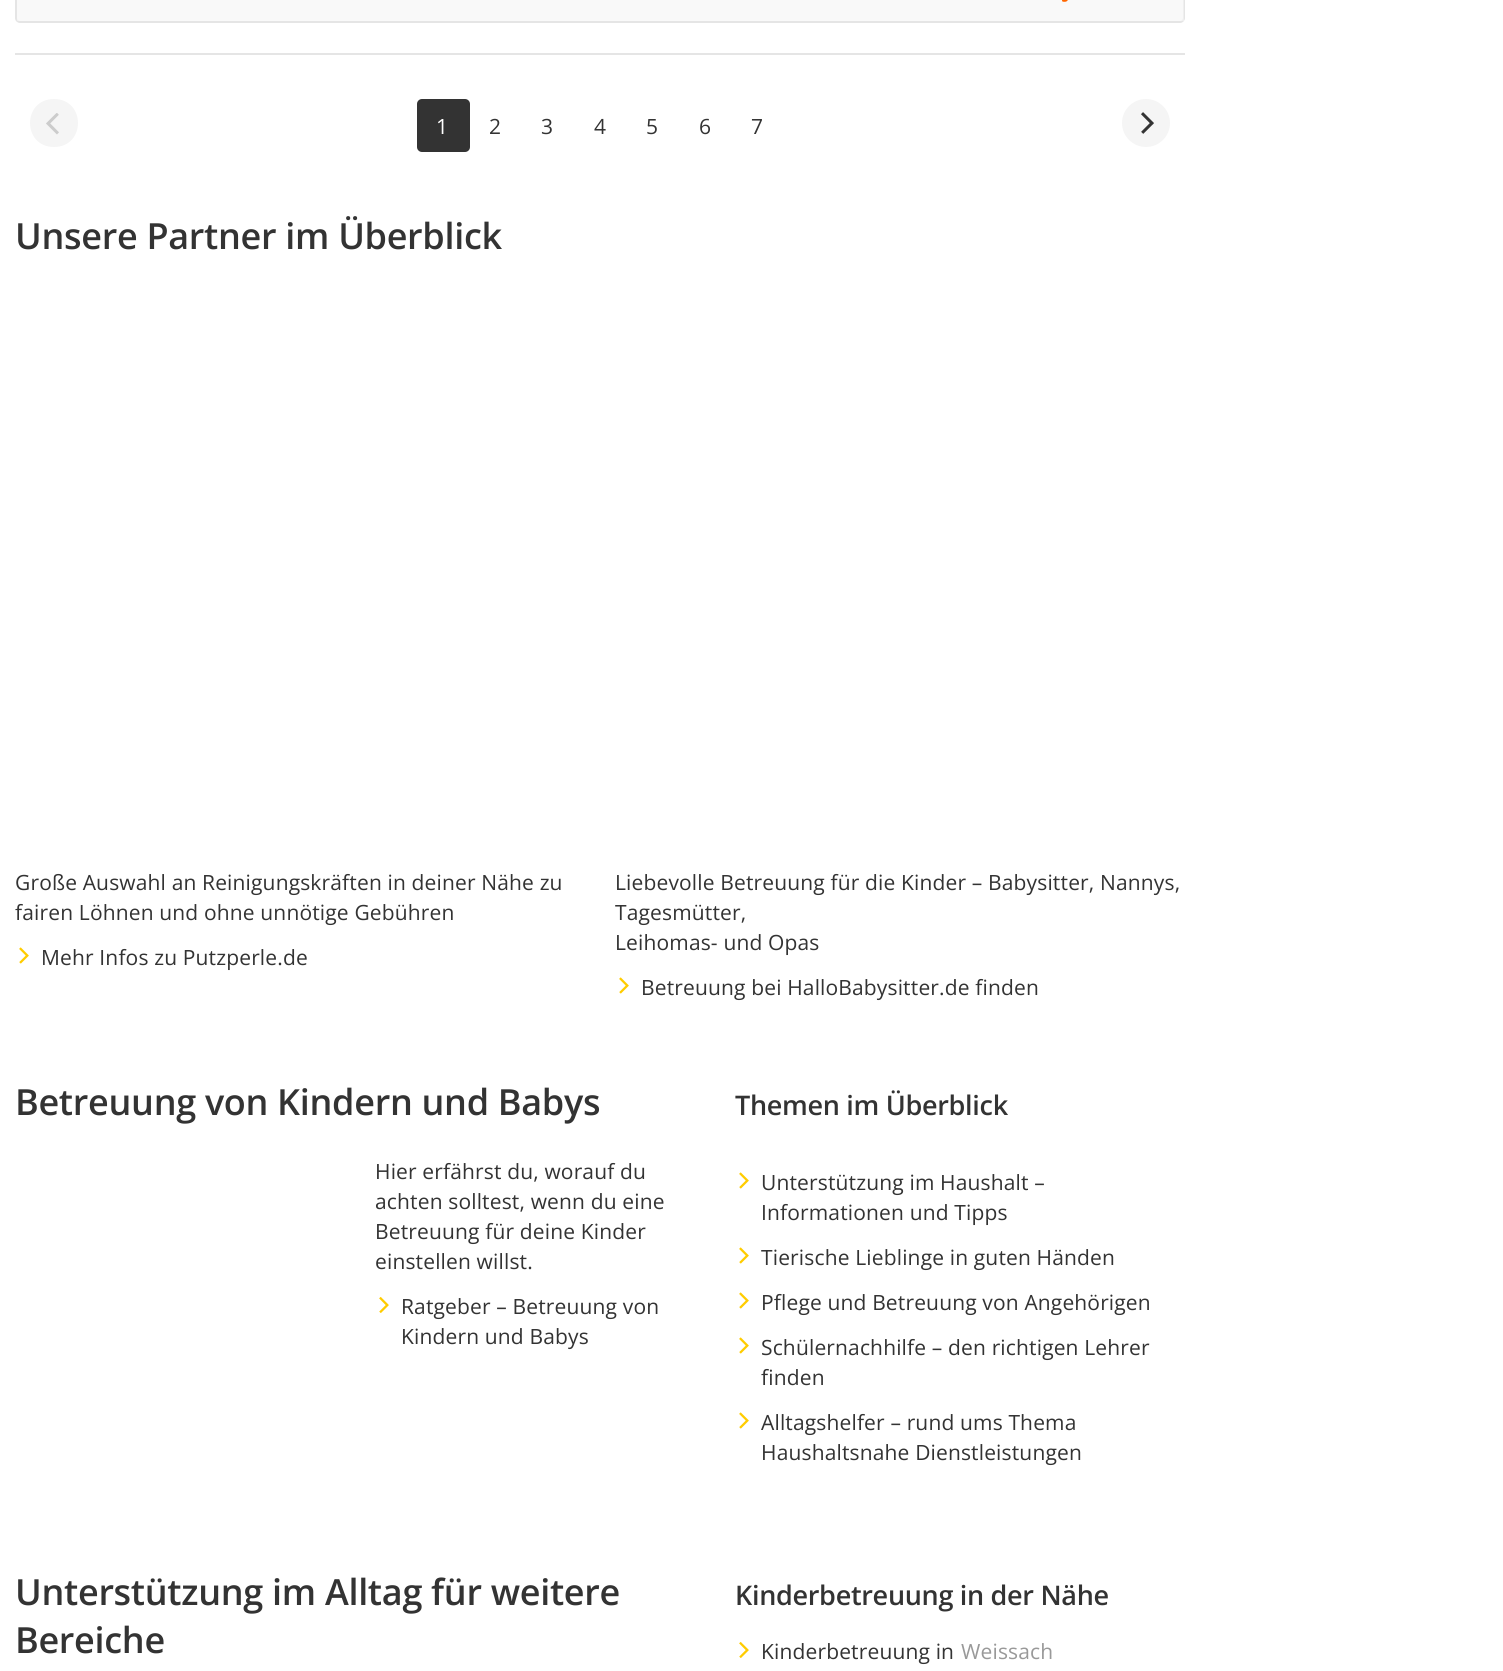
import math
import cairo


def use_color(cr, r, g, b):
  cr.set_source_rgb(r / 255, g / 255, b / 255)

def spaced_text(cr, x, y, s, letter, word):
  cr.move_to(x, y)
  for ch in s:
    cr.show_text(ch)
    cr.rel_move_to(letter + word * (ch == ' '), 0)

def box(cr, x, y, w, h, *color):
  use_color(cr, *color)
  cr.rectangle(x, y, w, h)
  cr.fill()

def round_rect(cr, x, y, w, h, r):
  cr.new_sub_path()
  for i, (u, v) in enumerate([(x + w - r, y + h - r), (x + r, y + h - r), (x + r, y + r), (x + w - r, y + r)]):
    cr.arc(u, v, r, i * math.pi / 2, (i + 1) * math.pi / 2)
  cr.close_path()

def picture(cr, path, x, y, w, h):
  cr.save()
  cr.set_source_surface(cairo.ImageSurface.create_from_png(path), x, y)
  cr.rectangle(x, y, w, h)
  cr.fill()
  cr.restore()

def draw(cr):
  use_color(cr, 255, 255, 255)
  cr.paint()
  round_rect(cr, 16, -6, 1168, 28, 4)
  use_color(cr, 229, 229, 229)
  cr.stroke()
  cr.set_source_rgba(0.961, 0.961, 0.961, 0.6)
  cr.rectangle(17, 0, 1167, 21)
  cr.fill()
  picture(cr, "img_01.png", 1062, 0, 6, 2)
  box(cr, 15, 53, 1170, 2, 229, 229, 229)
  use_color(cr, 245, 245, 245)
  cr.new_path()
  cr.move_to(54, 147)
  cr.curve_to(22, 147, 22, 99, 54, 99)
  cr.curve_to(86, 99, 86, 147, 54, 147)
  cr.close_path()
  cr.fill()
  picture(cr, "img_02.png", 46, 113, 13, 22)
  use_color(cr, 51, 51, 51)
  round_rect(cr, 417, 99, 53, 53, 5)
  cr.fill()
  use_color(cr, 245, 245, 245)
  cr.arc(1146, 123, 24, 0, 2 * math.pi)
  cr.fill()
  picture(cr, "img_03.png", 1141, 112, 13, 22)
  picture(cr, "img_04.png", 19, 947, 10, 17)
  picture(cr, "img_04.png", 619, 977, 10, 17)
  picture(cr, "img_05.png", 379, 1296, 10, 17)
  picture(cr, "img_04.png", 739, 1172, 10, 17)
  picture(cr, "img_04.png", 739, 1247, 10, 17)
  picture(cr, "img_04.png", 739, 1292, 10, 17)
  picture(cr, "img_04.png", 739, 1337, 10, 17)
  picture(cr, "img_04.png", 739, 1412, 10, 17)
  picture(cr, "img_05.png", 739, 1641, 10, 17)
  cr.select_font_face("Open Sans")
  cr.set_font_size(21)
  use_color(cr, 255, 255, 255)
  spaced_text(cr, 436, 134, "1", 0.15, 0)
  use_color(cr, 51, 51, 51)
  spaced_text(cr, 489, 134, "2", 0.15, 0)
  spaced_text(cr, 541, 134, "3", 0.15, 0)
  spaced_text(cr, 594, 134, "4", 0.15, 0)
  spaced_text(cr, 646, 134, "5", 0.15, 0)
  spaced_text(cr, 699, 134, "6", 0.15, 0)
  spaced_text(cr, 751, 134, "7", 0.15, 0)
  cr.select_font_face("Open Sans SemiBold")
  cr.set_font_size(36)
  spaced_text(cr, 15, 249, "Unsere Partner im Überblick", -0.3, 0)
  cr.select_font_face("Open Sans")
  cr.set_font_size(21)
  spaced_text(cr, 15, 890, "Große Auswahl an Reinigungskräften in deiner Nähe zu", 0.15, 0)
  spaced_text(cr, 15, 920, "fairen Löhnen und ohne unnötige Gebühren", 0.15, 0)
  spaced_text(cr, 41, 965, "Mehr Infos zu Putzperle.de", 0.15, 0)
  spaced_text(cr, 615, 890, "Liebevolle Betreuung für die Kinder – Babysitter, Nannys,", 0.15, 0)
  spaced_text(cr, 615, 920, "Tagesmütter,", 0.15, 0)
  spaced_text(cr, 615, 950, "Leihomas- und Opas", 0.15, 0)
  spaced_text(cr, 641, 995, "Betreuung bei HalloBabysitter.de finden", 0.15, 0)
  cr.select_font_face("Open Sans SemiBold")
  cr.set_font_size(36)
  spaced_text(cr, 15, 1115, "Betreuung von Kindern und Babys", -0.3, 0)
  cr.select_font_face("Open Sans")
  cr.set_font_size(21)
  spaced_text(cr, 375, 1179, "Hier erfährst du, worauf du", 0.15, 0)
  spaced_text(cr, 375, 1209, "achten solltest, wenn du eine", 0.15, 0)
  spaced_text(cr, 375, 1239, "Betreuung für deine Kinder", 0.15, 0)
  spaced_text(cr, 375, 1269, "einstellen willst.", 0.15, 0)
  spaced_text(cr, 401, 1314, "Ratgeber – Betreuung von", 0.15, 0)
  spaced_text(cr, 401, 1344, "Kindern und Babys", 0.15, 0)
  cr.select_font_face("Open Sans SemiBold")
  cr.set_font_size(27)
  spaced_text(cr, 735, 1115, "Themen im Überblick", -0.3, 0)
  cr.select_font_face("Open Sans")
  cr.set_font_size(21)
  spaced_text(cr, 761, 1190, "Unterstützung im Haushalt –", 0.15, 0)
  spaced_text(cr, 761, 1220, "Informationen und Tipps", 0.15, 0)
  spaced_text(cr, 761, 1265, "Tierische Lieblinge in guten Händen", 0.15, 0)
  spaced_text(cr, 761, 1310, "Pflege und Betreuung von Angehörigen", 0.15, 0)
  spaced_text(cr, 761, 1355, "Schülernachhilfe – den richtigen Lehrer", 0.15, 0)
  spaced_text(cr, 761, 1385, "finden", 0.15, 0)
  spaced_text(cr, 761, 1430, "Alltagshelfer – rund ums Thema", 0.15, 0)
  spaced_text(cr, 761, 1460, "Haushaltsnahe Dienstleistungen", 0.15, 0)
  cr.select_font_face("Open Sans SemiBold")
  cr.set_font_size(36)
  spaced_text(cr, 15, 1605, "Unterstützung im Alltag für weitere", -0.3, 0)
  spaced_text(cr, 15, 1653, "Bereiche", -0.3, 0)
  cr.set_font_size(27)
  spaced_text(cr, 735, 1605, "Kinderbetreuung in der Nähe", -0.3, 0)
  cr.select_font_face("Open Sans")
  cr.set_font_size(21)
  spaced_text(cr, 761, 1659, "Kinderbetreuung in", 0.15, 0)
  use_color(cr, 153, 153, 153)
  spaced_text(cr, 961, 1659, "Weissach", 0.15, 0)


surface = cairo.ImageSurface(cairo.FORMAT_RGB24, 1503, 1671)
cr = cairo.Context(surface)
options = cairo.FontOptions()
options.set_hint_metrics(cairo.HINT_METRICS_OFF)
options.set_hint_style(cairo.HINT_STYLE_NONE)
cr.set_font_options(options)
cr.set_miter_limit(4)
draw(cr)
surface.write_to_png("out.png")
